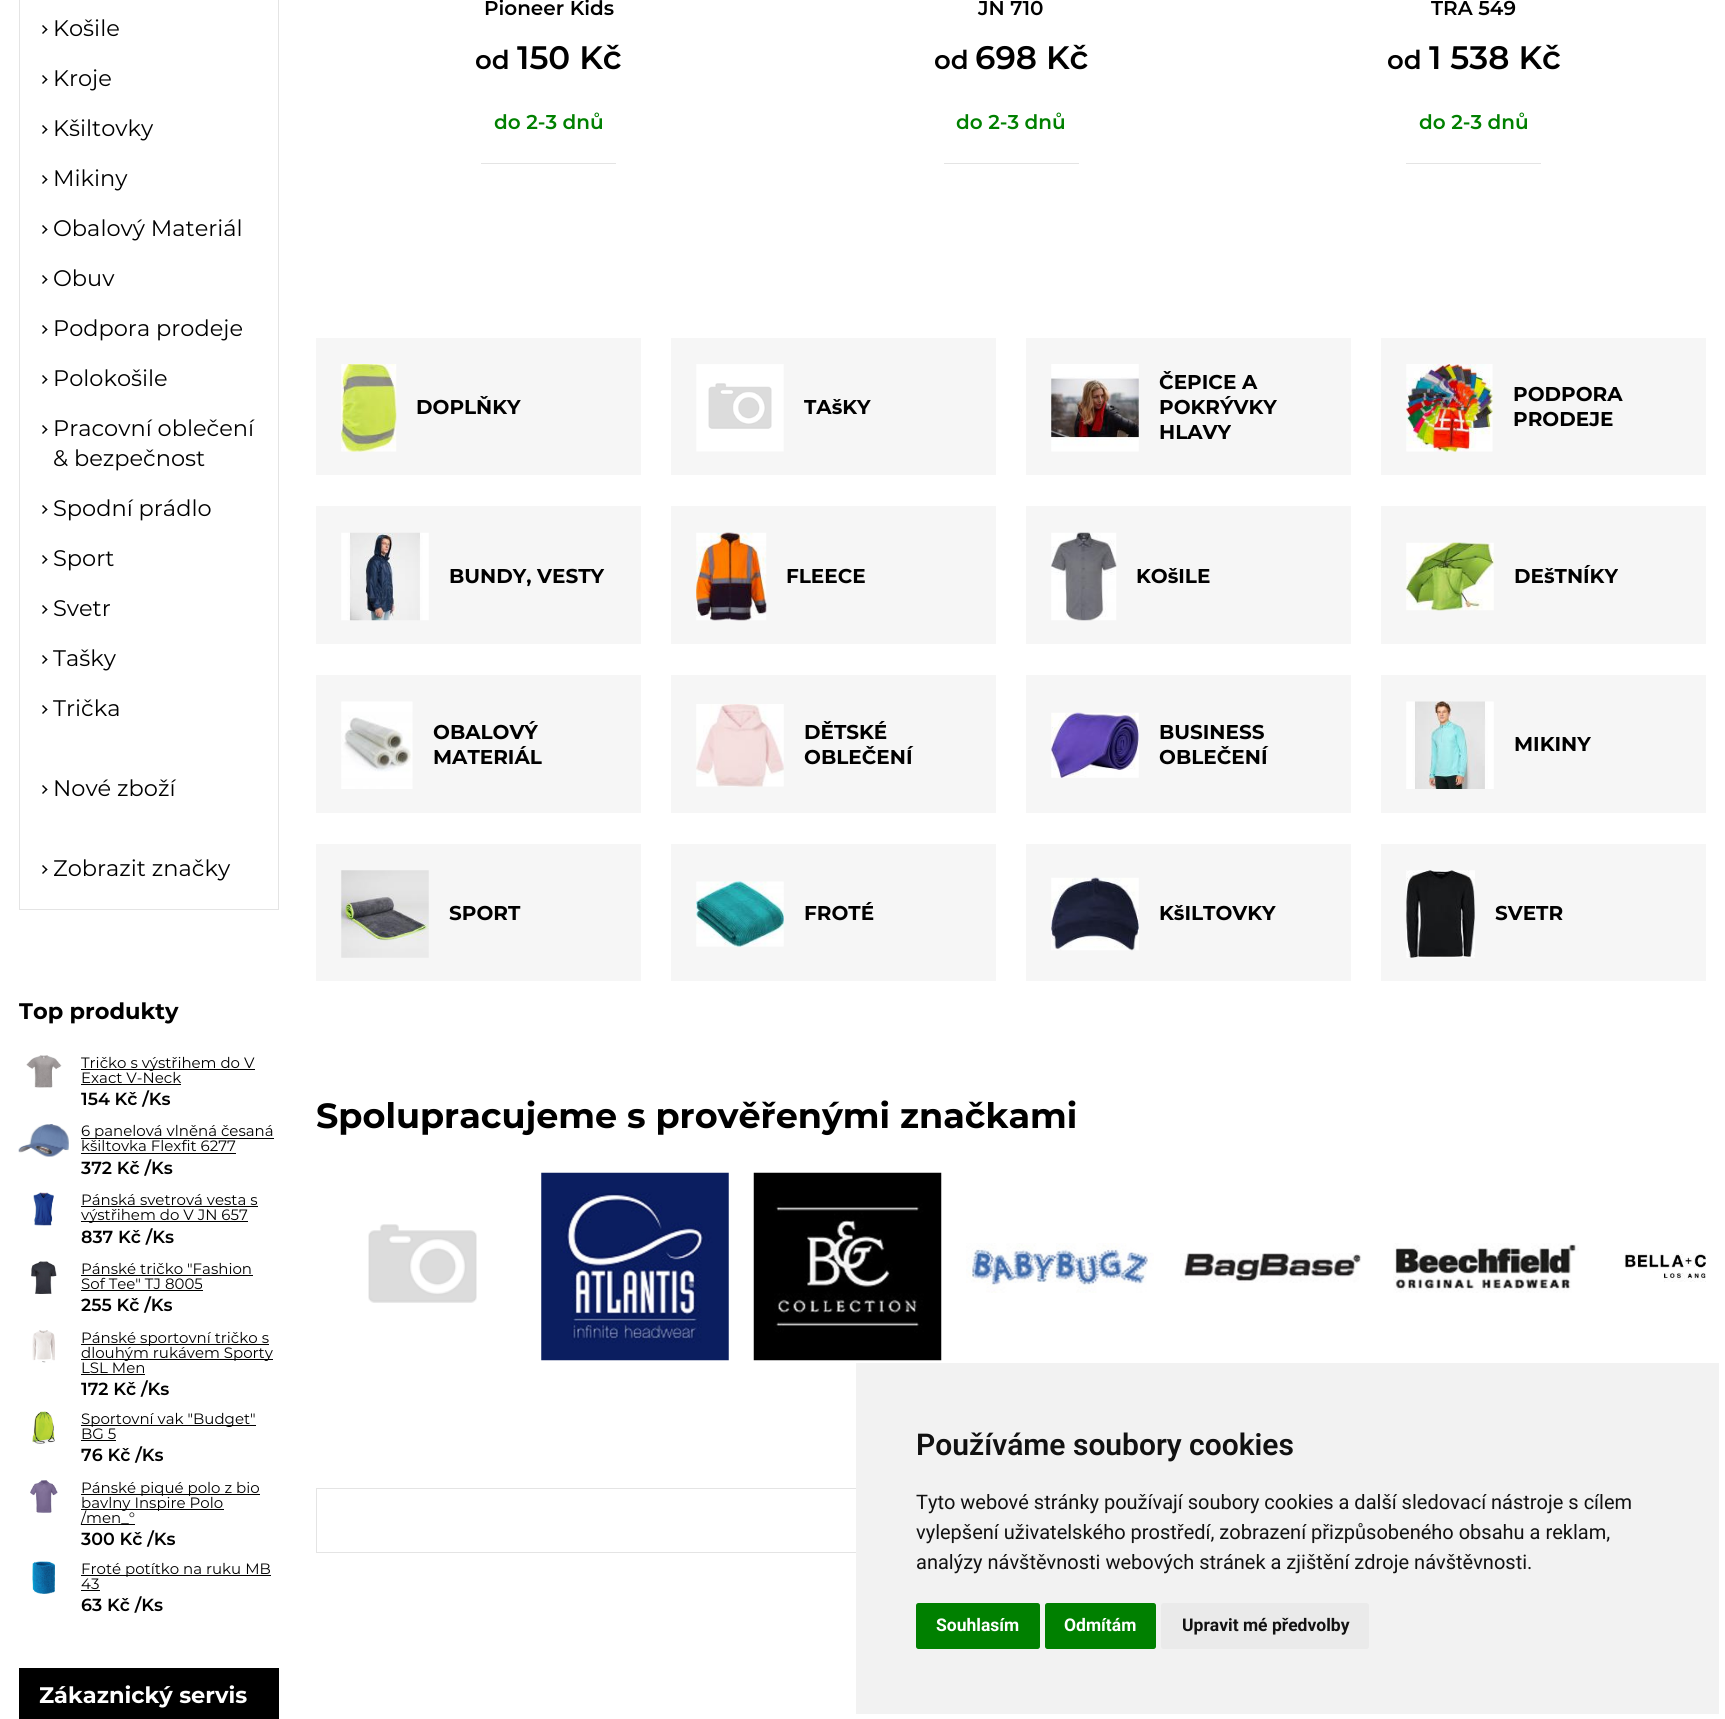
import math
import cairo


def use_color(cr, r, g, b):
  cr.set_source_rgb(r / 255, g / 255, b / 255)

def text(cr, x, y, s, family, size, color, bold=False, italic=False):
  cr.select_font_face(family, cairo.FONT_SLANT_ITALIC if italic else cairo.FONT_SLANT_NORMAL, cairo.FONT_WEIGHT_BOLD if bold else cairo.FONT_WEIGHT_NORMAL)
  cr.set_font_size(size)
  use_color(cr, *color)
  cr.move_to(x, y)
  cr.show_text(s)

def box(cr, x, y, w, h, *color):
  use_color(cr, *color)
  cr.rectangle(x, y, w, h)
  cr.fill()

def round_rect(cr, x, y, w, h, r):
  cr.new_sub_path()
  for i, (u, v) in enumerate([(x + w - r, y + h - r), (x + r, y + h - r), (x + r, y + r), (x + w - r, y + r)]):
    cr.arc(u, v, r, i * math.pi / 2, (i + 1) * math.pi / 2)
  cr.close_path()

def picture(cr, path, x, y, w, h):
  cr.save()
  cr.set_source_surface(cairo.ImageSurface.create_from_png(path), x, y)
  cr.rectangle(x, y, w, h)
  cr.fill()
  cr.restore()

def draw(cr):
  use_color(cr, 255, 255, 255)
  cr.paint()
  box(cr, 278, 0, 1, 910, 228, 228, 228)
  box(cr, 19, 909, 260, 1, 228, 228, 228)
  box(cr, 19, 0, 1, 910, 228, 228, 228)
  use_color(cr, 0, 0, 0)
  cr.new_path()
  cr.move_to(42, 26)
  cr.line_to(43, 25)
  cr.line_to(47.5, 29.5)
  cr.line_to(46.5, 30.5)
  cr.close_path()
  cr.fill()
  cr.new_path()
  cr.move_to(42, 33)
  cr.line_to(46.5, 28.5)
  cr.line_to(47.5, 29.5)
  cr.line_to(43, 34)
  cr.close_path()
  cr.fill()
  cr.new_path()
  cr.move_to(42, 76)
  cr.line_to(43, 75)
  cr.line_to(47.5, 79.5)
  cr.line_to(46.5, 80.5)
  cr.close_path()
  cr.fill()
  cr.new_path()
  cr.move_to(42, 83)
  cr.line_to(46.5, 78.5)
  cr.line_to(47.5, 79.5)
  cr.line_to(43, 84)
  cr.close_path()
  cr.fill()
  cr.new_path()
  cr.move_to(42, 126)
  cr.line_to(43, 125)
  cr.line_to(47.5, 129.5)
  cr.line_to(46.5, 130.5)
  cr.close_path()
  cr.fill()
  cr.new_path()
  cr.move_to(42, 133)
  cr.line_to(46.5, 128.5)
  cr.line_to(47.5, 129.5)
  cr.line_to(43, 134)
  cr.close_path()
  cr.fill()
  cr.new_path()
  cr.move_to(42, 176)
  cr.line_to(43, 175)
  cr.line_to(47.5, 179.5)
  cr.line_to(46.5, 180.5)
  cr.close_path()
  cr.fill()
  cr.new_path()
  cr.move_to(42, 183)
  cr.line_to(46.5, 178.5)
  cr.line_to(47.5, 179.5)
  cr.line_to(43, 184)
  cr.close_path()
  cr.fill()
  cr.new_path()
  cr.move_to(42, 226)
  cr.line_to(43, 225)
  cr.line_to(47.5, 229.5)
  cr.line_to(46.5, 230.5)
  cr.close_path()
  cr.fill()
  cr.new_path()
  cr.move_to(42, 233)
  cr.line_to(46.5, 228.5)
  cr.line_to(47.5, 229.5)
  cr.line_to(43, 234)
  cr.close_path()
  cr.fill()
  cr.new_path()
  cr.move_to(42, 276)
  cr.line_to(43, 275)
  cr.line_to(47.5, 279.5)
  cr.line_to(46.5, 280.5)
  cr.close_path()
  cr.fill()
  cr.new_path()
  cr.move_to(42, 283)
  cr.line_to(46.5, 278.5)
  cr.line_to(47.5, 279.5)
  cr.line_to(43, 284)
  cr.close_path()
  cr.fill()
  cr.new_path()
  cr.move_to(42, 326)
  cr.line_to(43, 325)
  cr.line_to(47.5, 329.5)
  cr.line_to(46.5, 330.5)
  cr.close_path()
  cr.fill()
  cr.new_path()
  cr.move_to(42, 333)
  cr.line_to(46.5, 328.5)
  cr.line_to(47.5, 329.5)
  cr.line_to(43, 334)
  cr.close_path()
  cr.fill()
  cr.new_path()
  cr.move_to(42, 376)
  cr.line_to(43, 375)
  cr.line_to(47.5, 379.5)
  cr.line_to(46.5, 380.5)
  cr.close_path()
  cr.fill()
  cr.new_path()
  cr.move_to(42, 383)
  cr.line_to(46.5, 378.5)
  cr.line_to(47.5, 379.5)
  cr.line_to(43, 384)
  cr.close_path()
  cr.fill()
  cr.new_path()
  cr.move_to(42, 426)
  cr.line_to(43, 425)
  cr.line_to(47.5, 429.5)
  cr.line_to(46.5, 430.5)
  cr.close_path()
  cr.fill()
  cr.new_path()
  cr.move_to(42, 433)
  cr.line_to(46.5, 428.5)
  cr.line_to(47.5, 429.5)
  cr.line_to(43, 434)
  cr.close_path()
  cr.fill()
  cr.new_path()
  cr.move_to(42, 506)
  cr.line_to(43, 505)
  cr.line_to(47.5, 509.5)
  cr.line_to(46.5, 510.5)
  cr.close_path()
  cr.fill()
  cr.new_path()
  cr.move_to(42, 513)
  cr.line_to(46.5, 508.5)
  cr.line_to(47.5, 509.5)
  cr.line_to(43, 514)
  cr.close_path()
  cr.fill()
  cr.new_path()
  cr.move_to(42, 556)
  cr.line_to(43, 555)
  cr.line_to(47.5, 559.5)
  cr.line_to(46.5, 560.5)
  cr.close_path()
  cr.fill()
  cr.new_path()
  cr.move_to(42, 563)
  cr.line_to(46.5, 558.5)
  cr.line_to(47.5, 559.5)
  cr.line_to(43, 564)
  cr.close_path()
  cr.fill()
  cr.new_path()
  cr.move_to(42, 606)
  cr.line_to(43, 605)
  cr.line_to(47.5, 609.5)
  cr.line_to(46.5, 610.5)
  cr.close_path()
  cr.fill()
  cr.new_path()
  cr.move_to(42, 613)
  cr.line_to(46.5, 608.5)
  cr.line_to(47.5, 609.5)
  cr.line_to(43, 614)
  cr.close_path()
  cr.fill()
  cr.new_path()
  cr.move_to(42, 656)
  cr.line_to(43, 655)
  cr.line_to(47.5, 659.5)
  cr.line_to(46.5, 660.5)
  cr.close_path()
  cr.fill()
  cr.new_path()
  cr.move_to(42, 663)
  cr.line_to(46.5, 658.5)
  cr.line_to(47.5, 659.5)
  cr.line_to(43, 664)
  cr.close_path()
  cr.fill()
  cr.new_path()
  cr.move_to(42, 706)
  cr.line_to(43, 705)
  cr.line_to(47.5, 709.5)
  cr.line_to(46.5, 710.5)
  cr.close_path()
  cr.fill()
  cr.new_path()
  cr.move_to(42, 713)
  cr.line_to(46.5, 708.5)
  cr.line_to(47.5, 709.5)
  cr.line_to(43, 714)
  cr.close_path()
  cr.fill()
  cr.new_path()
  cr.move_to(42, 786)
  cr.line_to(43, 785)
  cr.line_to(47.5, 789.5)
  cr.line_to(46.5, 790.5)
  cr.close_path()
  cr.fill()
  cr.new_path()
  cr.move_to(42, 793)
  cr.line_to(46.5, 788.5)
  cr.line_to(47.5, 789.5)
  cr.line_to(43, 794)
  cr.close_path()
  cr.fill()
  cr.new_path()
  cr.move_to(42, 866)
  cr.line_to(43, 865)
  cr.line_to(47.5, 869.5)
  cr.line_to(46.5, 870.5)
  cr.close_path()
  cr.fill()
  cr.new_path()
  cr.move_to(42, 873)
  cr.line_to(46.5, 868.5)
  cr.line_to(47.5, 869.5)
  cr.line_to(43, 874)
  cr.close_path()
  cr.fill()
  picture(cr, "img_01.png", 26, 1055, 36, 33)
  box(cr, 81, 1069, 174, 1, 0, 0, 0)
  box(cr, 81, 1084, 100, 1, 0, 0, 0)
  picture(cr, "img_02.png", 18, 1124, 51, 33)
  box(cr, 81, 1138, 193, 1, 0, 0, 0)
  box(cr, 81, 1153, 155, 1, 0, 0, 0)
  picture(cr, "img_03.png", 33, 1192, 21, 34)
  box(cr, 81, 1206, 177, 1, 0, 0, 0)
  box(cr, 81, 1221, 167, 1, 0, 0, 0)
  picture(cr, "img_04.png", 31, 1261, 26, 33)
  box(cr, 81, 1275, 172, 1, 0, 0, 0)
  box(cr, 81, 1290, 122, 1, 0, 0, 0)
  picture(cr, "img_05.png", 32, 1330, 23, 33)
  box(cr, 81, 1344, 188, 1, 0, 0, 0)
  box(cr, 81, 1359, 192, 1, 0, 0, 0)
  box(cr, 81, 1374, 64, 1, 0, 0, 0)
  picture(cr, "img_06.png", 32, 1411, 23, 33)
  box(cr, 81, 1425, 175, 1, 0, 0, 0)
  box(cr, 81, 1440, 35, 1, 0, 0, 0)
  picture(cr, "img_07.png", 30, 1480, 28, 33)
  box(cr, 81, 1494, 179, 1, 0, 0, 0)
  box(cr, 81, 1509, 143, 1, 0, 0, 0)
  box(cr, 81, 1524, 54, 1, 0, 0, 0)
  picture(cr, "img_08.png", 32, 1561, 23, 33)
  box(cr, 81, 1575, 190, 1, 0, 0, 0)
  box(cr, 81, 1590, 19, 1, 0, 0, 0)
  box(cr, 19, 1668, 260, 51, 0, 0, 0)
  box(cr, 481, 163, 135, 1, 228, 228, 228)
  box(cr, 944, 163, 135, 1, 228, 228, 228)
  box(cr, 1406, 163, 135, 1, 228, 228, 228)
  box(cr, 316, 338, 325, 137, 246, 246, 246)
  picture(cr, "img_09.png", 341, 364, 56, 88)
  box(cr, 671, 338, 325, 137, 246, 246, 246)
  picture(cr, "img_10.png", 696, 364, 88, 88)
  box(cr, 1026, 338, 325, 137, 246, 246, 246)
  picture(cr, "img_11.png", 1051, 364, 88, 88)
  box(cr, 1381, 338, 325, 137, 246, 246, 246)
  picture(cr, "img_12.png", 1406, 364, 87, 88)
  box(cr, 316, 506, 325, 138, 246, 246, 246)
  picture(cr, "img_13.png", 341, 532, 88, 89)
  box(cr, 671, 506, 325, 138, 246, 246, 246)
  picture(cr, "img_14.png", 696, 532, 71, 89)
  box(cr, 1026, 506, 325, 138, 246, 246, 246)
  picture(cr, "img_15.png", 1051, 532, 66, 89)
  box(cr, 1381, 506, 325, 138, 246, 246, 246)
  picture(cr, "img_16.png", 1406, 542, 88, 69)
  box(cr, 316, 675, 325, 138, 246, 246, 246)
  picture(cr, "img_17.png", 341, 701, 72, 88)
  box(cr, 671, 675, 325, 138, 246, 246, 246)
  picture(cr, "img_18.png", 696, 704, 88, 83)
  box(cr, 1026, 675, 325, 138, 246, 246, 246)
  picture(cr, "img_19.png", 1051, 712, 88, 66)
  box(cr, 1381, 675, 325, 138, 246, 246, 246)
  picture(cr, "img_20.png", 1406, 701, 88, 88)
  box(cr, 316, 844, 325, 137, 246, 246, 246)
  picture(cr, "img_21.png", 341, 870, 88, 88)
  box(cr, 671, 844, 325, 137, 246, 246, 246)
  picture(cr, "img_22.png", 696, 881, 88, 66)
  box(cr, 1026, 844, 325, 137, 246, 246, 246)
  picture(cr, "img_23.png", 1051, 877, 88, 74)
  box(cr, 1381, 844, 325, 137, 246, 246, 246)
  picture(cr, "img_24.png", 1406, 870, 69, 88)
  picture(cr, "img_25.png", 368, 1224, 109, 79)
  picture(cr, "img_26.png", 541, 1172, 188, 189)
  picture(cr, "img_27.png", 753, 1172, 189, 189)
  picture(cr, "img_28.png", 966, 1243, 188, 50)
  picture(cr, "img_29.png", 1180, 1253, 182, 30)
  picture(cr, "img_30.png", 1393, 1243, 186, 50)
  picture(cr, "img_31.png", 1624, 1252, 82, 30)
  cr.rectangle(316.5, 1488.5, 1389, 64)
  use_color(cr, 228, 228, 228)
  cr.set_line_width(1)
  cr.stroke()
  box(cr, 856, 1363, 863, 351, 242, 242, 242)
  use_color(cr, 0, 128, 0)
  round_rect(cr, 916, 1603, 124, 46, 2.5)
  cr.fill()
  round_rect(cr, 1045, 1603, 111, 46, 2.5)
  cr.fill()
  use_color(cr, 234, 234, 234)
  round_rect(cr, 1161, 1603, 208, 46, 2.5)
  cr.fill()
  text(cr, 53, 36, "Košile", "Montserrat", 22.5, (0, 0, 0))
  text(cr, 53, 86, "Kroje", "Montserrat", 22.5, (0, 0, 0))
  text(cr, 53, 136, "Kšiltovky", "Montserrat", 22.5, (0, 0, 0))
  text(cr, 53, 186, "Mikiny", "Montserrat", 22.5, (0, 0, 0))
  text(cr, 53, 236, "Obalový Materiál", "Montserrat", 22.5, (0, 0, 0))
  text(cr, 53, 286, "Obuv", "Montserrat", 22.5, (0, 0, 0))
  text(cr, 53, 336, "Podpora prodeje", "Montserrat", 22.5, (0, 0, 0))
  text(cr, 53, 386, "Polokošile", "Montserrat", 22.5, (0, 0, 0))
  text(cr, 53, 436, "Pracovní oblečení", "Montserrat", 22.5, (0, 0, 0))
  text(cr, 53, 466, "& bezpečnost", "Montserrat", 22.5, (0, 0, 0))
  text(cr, 53, 516, "Spodní prádlo", "Montserrat", 22.5, (0, 0, 0))
  text(cr, 53, 566, "Sport", "Montserrat", 22.5, (0, 0, 0))
  text(cr, 53, 616, "Svetr", "Montserrat", 22.5, (0, 0, 0))
  text(cr, 53, 666, "Tašky", "Montserrat", 22.5, (0, 0, 0))
  text(cr, 53, 716, "Trička", "Montserrat", 22.5, (0, 0, 0))
  text(cr, 53, 796, "Nové zboží", "Montserrat", 22.5, (0, 0, 0))
  text(cr, 53, 876, "Zobrazit značky", "Montserrat", 22.5, (0, 0, 0))
  text(cr, 19, 1019, "Top produkty", "Montserrat", 22.5, (0, 0, 0), bold=True)
  text(cr, 81, 1068, "Tričko s výstřihem do V", "Montserrat", 15, (0, 0, 0))
  text(cr, 81, 1083, "Exact V-Neck", "Montserrat", 15, (0, 0, 0))
  text(cr, 81, 1105, "154 Kč /Ks", "Montserrat SemiBold", 17.5, (0, 0, 0))
  text(cr, 81, 1136, "6 panelová vlněná česaná", "Montserrat", 15, (0, 0, 0))
  text(cr, 81, 1151, "kšiltovka Flexfit 6277", "Montserrat", 15, (0, 0, 0))
  text(cr, 81, 1174, "372 Kč /Ks", "Montserrat SemiBold", 17.5, (0, 0, 0))
  text(cr, 81, 1205, "Pánská svetrová vesta s", "Montserrat", 15, (0, 0, 0))
  text(cr, 81, 1220, "výstřihem do V JN 657", "Montserrat", 15, (0, 0, 0))
  text(cr, 81, 1243, "837 Kč /Ks", "Montserrat SemiBold", 17.5, (0, 0, 0))
  text(cr, 81, 1274, "Pánské tričko \"Fashion", "Montserrat", 15, (0, 0, 0))
  text(cr, 81, 1289, "Sof Tee\" TJ 8005", "Montserrat", 15, (0, 0, 0))
  text(cr, 81, 1311, "255 Kč /Ks", "Montserrat SemiBold", 17.5, (0, 0, 0))
  text(cr, 81, 1343, "Pánské sportovní tričko s", "Montserrat", 15, (0, 0, 0))
  text(cr, 81, 1358, "dlouhým rukávem Sporty", "Montserrat", 15, (0, 0, 0))
  text(cr, 81, 1373, "LSL Men", "Montserrat", 15, (0, 0, 0))
  text(cr, 81, 1395, "172 Kč /Ks", "Montserrat SemiBold", 17.5, (0, 0, 0))
  text(cr, 81, 1424, "Sportovní vak \"Budget\"", "Montserrat", 15, (0, 0, 0))
  text(cr, 81, 1439, "BG 5", "Montserrat", 15, (0, 0, 0))
  text(cr, 81, 1461, "76 Kč /Ks", "Montserrat SemiBold", 17.5, (0, 0, 0))
  text(cr, 81, 1493, "Pánské piqué polo z bio", "Montserrat", 15, (0, 0, 0))
  text(cr, 81, 1508, "bavlny Inspire Polo", "Montserrat", 15, (0, 0, 0))
  text(cr, 81, 1523, "/men_°", "Montserrat", 15, (0, 0, 0))
  text(cr, 81, 1545, "300 Kč /Ks", "Montserrat SemiBold", 17.5, (0, 0, 0))
  text(cr, 81, 1574, "Froté potítko na ruku MB", "Montserrat", 15, (0, 0, 0))
  text(cr, 81, 1589, "43", "Montserrat", 15, (0, 0, 0))
  text(cr, 81, 1611, "63 Kč /Ks", "Montserrat SemiBold", 17.5, (0, 0, 0))
  text(cr, 39, 1703, "Zákaznický servis", "Montserrat", 22.5, (255, 255, 255), bold=True)
  text(cr, 484, 15, "Pioneer Kids", "Montserrat SemiBold", 20, (0, 0, 0))
  text(cr, 475, 69, "od", "Montserrat SemiBold", 26, (0, 0, 0))
  text(cr, 517, 69, "150 Kč", "Montserrat SemiBold", 32.5, (0, 0, 0))
  text(cr, 494, 129, "do 2-3 dnů", "Montserrat SemiBold", 20, (0, 128, 0))
  text(cr, 978, 15, "JN 710", "Montserrat SemiBold", 20, (0, 0, 0))
  text(cr, 934, 69, "od", "Montserrat SemiBold", 26, (0, 0, 0))
  text(cr, 975, 69, "698 Kč", "Montserrat SemiBold", 32.5, (0, 0, 0))
  text(cr, 956, 129, "do 2-3 dnů", "Montserrat SemiBold", 20, (0, 128, 0))
  text(cr, 1431, 15, "TRA 549", "Montserrat SemiBold", 20, (0, 0, 0))
  text(cr, 1387, 69, "od", "Montserrat SemiBold", 26, (0, 0, 0))
  text(cr, 1429, 69, "1 538 Kč", "Montserrat SemiBold", 32.5, (0, 0, 0))
  text(cr, 1419, 129, "do 2-3 dnů", "Montserrat SemiBold", 20, (0, 128, 0))
  text(cr, 416, 414, "DOPLŇKY", "Montserrat", 20, (0, 0, 0), bold=True)
  text(cr, 804, 414, "TAšKY", "Montserrat", 20, (0, 0, 0), bold=True)
  text(cr, 1159, 389, "ČEPICE A", "Montserrat", 20, (0, 0, 0), bold=True)
  text(cr, 1159, 414, "POKRÝVKY", "Montserrat", 20, (0, 0, 0), bold=True)
  text(cr, 1159, 439, "HLAVY", "Montserrat", 20, (0, 0, 0), bold=True)
  text(cr, 1513, 401, "PODPORA", "Montserrat", 20, (0, 0, 0), bold=True)
  text(cr, 1513, 426, "PRODEJE", "Montserrat", 20, (0, 0, 0), bold=True)
  text(cr, 449, 583, "BUNDY, VESTY", "Montserrat", 20, (0, 0, 0), bold=True)
  text(cr, 786, 583, "FLEECE", "Montserrat", 20, (0, 0, 0), bold=True)
  text(cr, 1136, 583, "KOšILE", "Montserrat", 20, (0, 0, 0), bold=True)
  text(cr, 1514, 583, "DEšTNÍKY", "Montserrat", 20, (0, 0, 0), bold=True)
  text(cr, 433, 739, "OBALOVÝ", "Montserrat", 20, (0, 0, 0), bold=True)
  text(cr, 433, 764, "MATERIÁL", "Montserrat", 20, (0, 0, 0), bold=True)
  text(cr, 804, 739, "DĚTSKÉ", "Montserrat", 20, (0, 0, 0), bold=True)
  text(cr, 804, 764, "OBLEČENÍ", "Montserrat", 20, (0, 0, 0), bold=True)
  text(cr, 1159, 739, "BUSINESS", "Montserrat", 20, (0, 0, 0), bold=True)
  text(cr, 1159, 764, "OBLEČENÍ", "Montserrat", 20, (0, 0, 0), bold=True)
  text(cr, 1514, 751, "MIKINY", "Montserrat", 20, (0, 0, 0), bold=True)
  text(cr, 449, 920, "SPORT", "Montserrat", 20, (0, 0, 0), bold=True)
  text(cr, 804, 920, "FROTÉ", "Montserrat", 20, (0, 0, 0), bold=True)
  text(cr, 1159, 920, "KšILTOVKY", "Montserrat", 20, (0, 0, 0), bold=True)
  text(cr, 1495, 920, "SVETR", "Montserrat", 20, (0, 0, 0), bold=True)
  text(cr, 316, 1128, "Spolupracujeme s prověřenými značkami", "Montserrat", 35, (0, 0, 0), bold=True)
  text(cr, 916, 1455, "Používáme soubory cookies", "Roboto SemiBold", 30, (17, 17, 17))
  text(cr, 916, 1509, "Tyto webové stránky používají soubory cookies a další sledovací nástroje s cílem", "Roboto", 20, (17, 17, 17))
  text(cr, 916, 1539, "vylepšení uživatelského prostředí, zobrazení přizpůsobeného obsahu a reklam,", "Roboto", 20, (17, 17, 17))
  text(cr, 916, 1569, "analýzy návštěvnosti webových stránek a zjištění zdroje návštěvnosti.", "Roboto", 20, (17, 17, 17))
  text(cr, 936, 1631, "Souhlasím", "Roboto", 17.5, (255, 255, 255), bold=True)
  text(cr, 1064, 1631, "Odmítám", "Roboto", 17.5, (255, 255, 255), bold=True)
  text(cr, 1182, 1631, "Upravit mé předvolby", "Roboto", 17.5, (17, 17, 17), bold=True)


surface = cairo.ImageSurface(cairo.FORMAT_RGB24, 1725, 1719)
cr = cairo.Context(surface)
options = cairo.FontOptions()
options.set_hint_metrics(cairo.HINT_METRICS_OFF)
options.set_hint_style(cairo.HINT_STYLE_NONE)
cr.set_font_options(options)
cr.set_miter_limit(4)
draw(cr)
surface.write_to_png("out.png")
